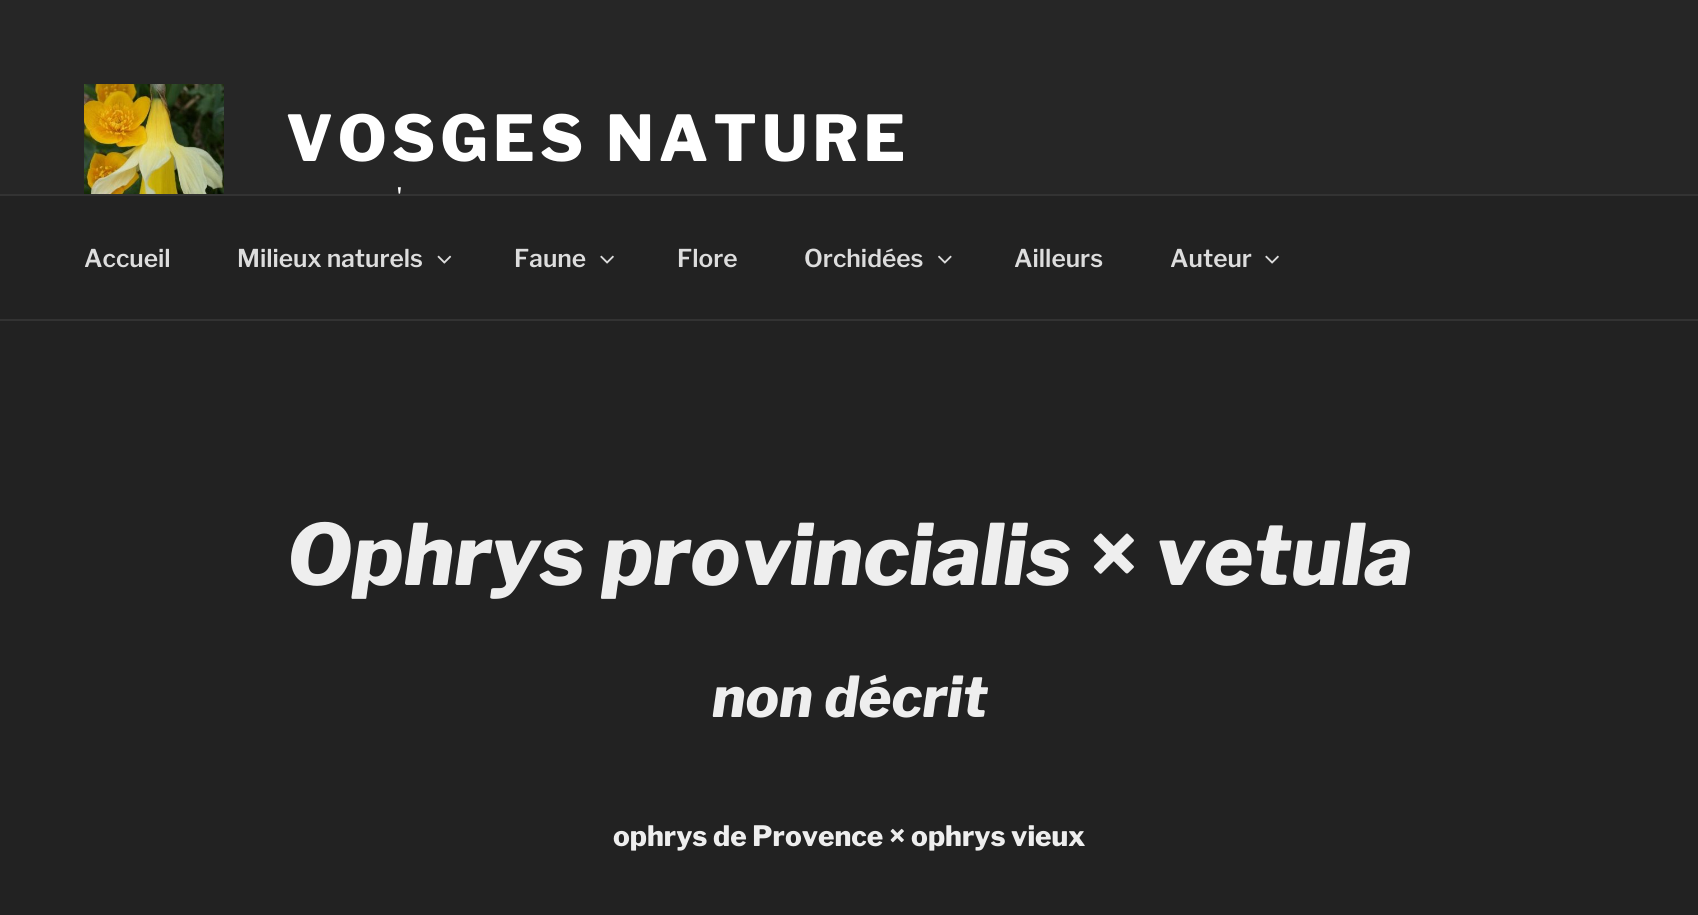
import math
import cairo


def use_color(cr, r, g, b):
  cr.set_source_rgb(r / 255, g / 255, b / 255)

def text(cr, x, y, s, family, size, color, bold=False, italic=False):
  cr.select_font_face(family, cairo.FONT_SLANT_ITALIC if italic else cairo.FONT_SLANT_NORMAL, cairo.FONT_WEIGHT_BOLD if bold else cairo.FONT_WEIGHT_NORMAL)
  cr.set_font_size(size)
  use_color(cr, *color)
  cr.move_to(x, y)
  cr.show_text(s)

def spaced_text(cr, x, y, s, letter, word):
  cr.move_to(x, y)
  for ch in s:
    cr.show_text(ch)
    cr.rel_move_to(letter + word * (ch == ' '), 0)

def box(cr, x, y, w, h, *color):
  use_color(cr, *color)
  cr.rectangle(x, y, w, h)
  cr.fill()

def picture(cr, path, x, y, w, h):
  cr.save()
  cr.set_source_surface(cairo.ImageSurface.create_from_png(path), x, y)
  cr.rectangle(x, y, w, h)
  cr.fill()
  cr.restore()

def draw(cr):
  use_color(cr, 34, 34, 34)
  cr.paint()
  box(cr, 0, 0, 1698, 194, 38, 38, 38)
  picture(cr, "img_01.png", 84, 84, 140, 110)
  box(cr, 0, 194, 1698, 2, 51, 51, 51)
  box(cr, 0, 319, 1698, 2, 51, 51, 51)
  picture(cr, "img_02.png", 437, 255, 15, 9)
  picture(cr, "img_03.png", 600, 255, 14, 9)
  picture(cr, "img_04.png", 938, 255, 14, 9)
  picture(cr, "img_03.png", 1265, 255, 14, 9)
  cr.select_font_face("Libre Franklin Thin")
  cr.set_font_size(63)
  use_color(cr, 255, 255, 255)
  spaced_text(cr, 286, 161, "VOSGES NATURE", 5, 0)
  text(cr, 396, 208, "'", "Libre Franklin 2 Thin", 28, (255, 255, 255))
  text(cr, 84, 267, "Accueil", "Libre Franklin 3 Thin", 24.5, (221, 221, 221))
  text(cr, 237, 267, "Milieux naturels", "Libre Franklin 3 Thin", 24.5, (221, 221, 221))
  text(cr, 514, 267, "Faune", "Libre Franklin 3 Thin", 24.5, (221, 221, 221))
  text(cr, 677, 267, "Flore", "Libre Franklin 3 Thin", 24.5, (221, 221, 221))
  text(cr, 804, 267, "Orchidées", "Libre Franklin 3 Thin", 24.5, (221, 221, 221))
  text(cr, 1014, 267, "Ailleurs", "Libre Franklin 3 Thin", 24.5, (221, 221, 221))
  text(cr, 1170, 267, "Auteur", "Libre Franklin 3 Thin", 24.5, (221, 221, 221))
  text(cr, 287, 585, "Ophrys provincialis", "Libre Franklin Thin", 84, (238, 238, 238), italic=True)
  text(cr, 1089, 585, "×", "Libre Franklin Thin", 84, (238, 238, 238))
  text(cr, 1155, 585, "vetula", "Libre Franklin Thin", 84, (238, 238, 238), italic=True)
  text(cr, 712, 717, "non décrit", "Libre Franklin Thin", 56, (238, 238, 238), italic=True)
  text(cr, 613, 846, "ophrys de Provence × ophrys vieux", "Libre Franklin Thin", 28, (238, 238, 238))


surface = cairo.ImageSurface(cairo.FORMAT_RGB24, 1698, 915)
cr = cairo.Context(surface)
options = cairo.FontOptions()
options.set_hint_metrics(cairo.HINT_METRICS_OFF)
options.set_hint_style(cairo.HINT_STYLE_NONE)
cr.set_font_options(options)
cr.set_miter_limit(4)
draw(cr)
surface.write_to_png("out.png")
